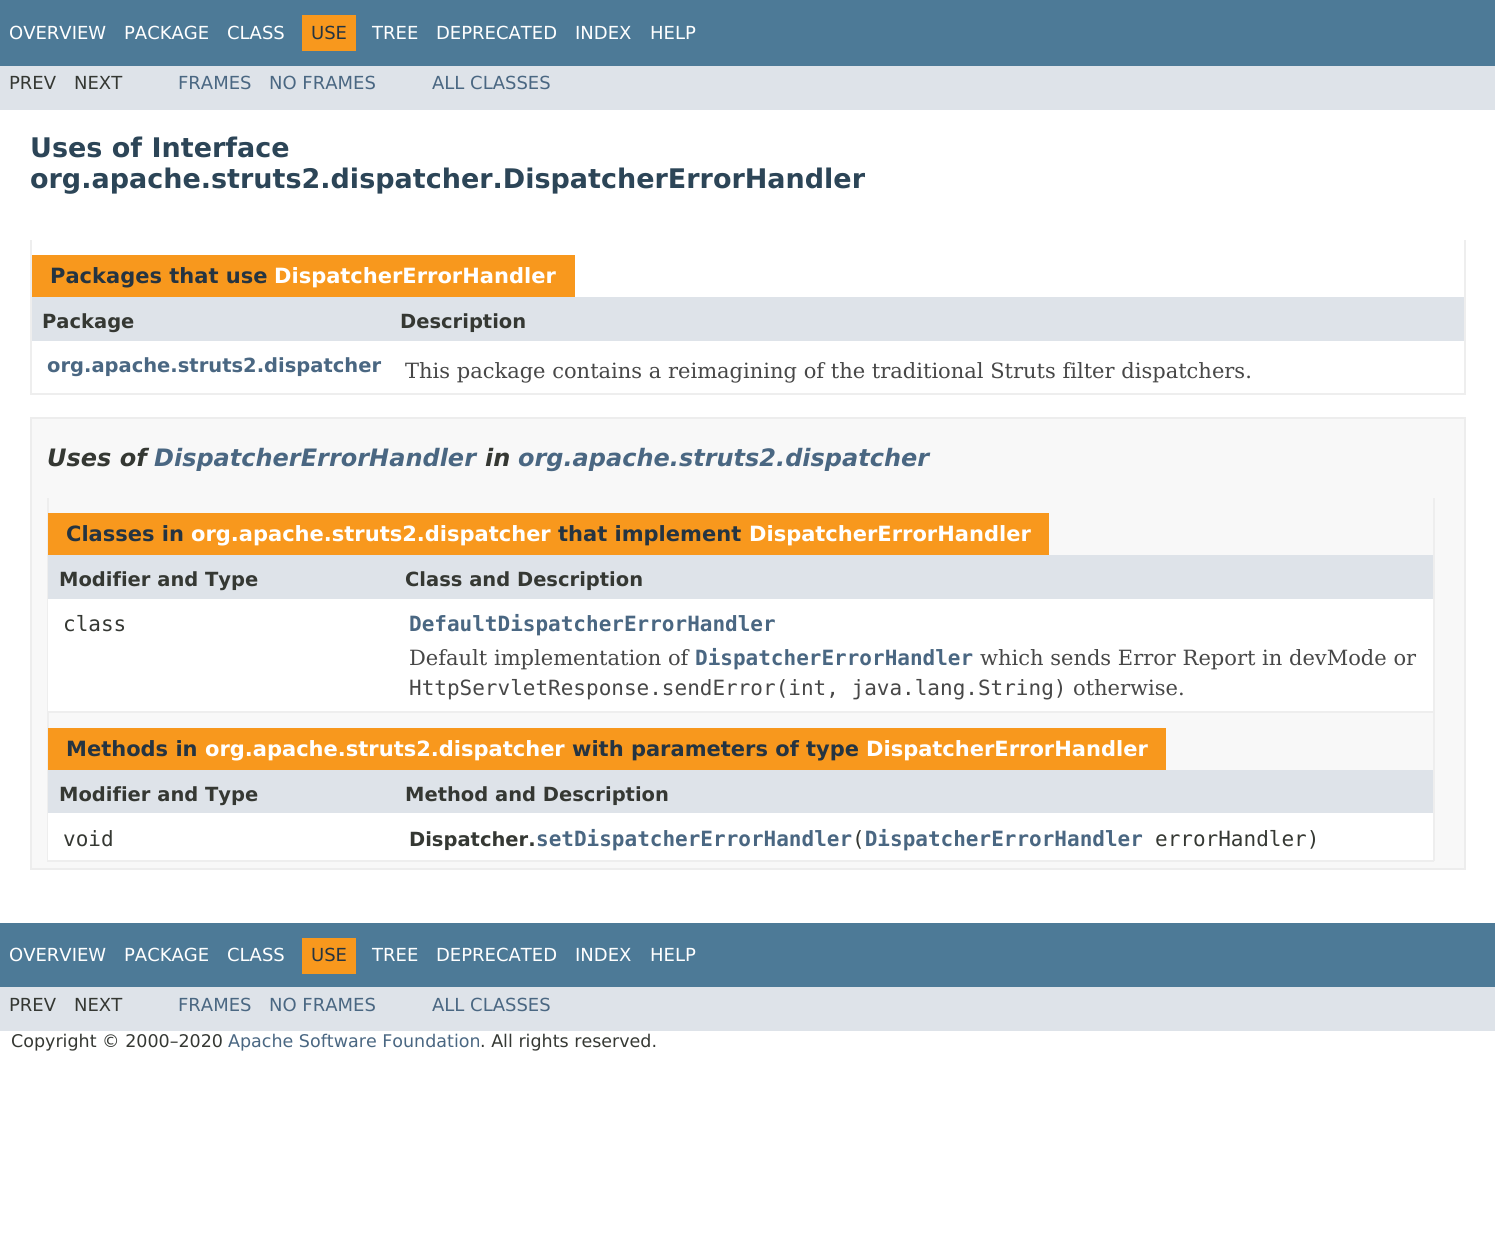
import math
import cairo


def use_color(cr, r, g, b):
  cr.set_source_rgb(r / 255, g / 255, b / 255)

def text(cr, x, y, s, family, size, color, bold=False, italic=False):
  cr.select_font_face(family, cairo.FONT_SLANT_ITALIC if italic else cairo.FONT_SLANT_NORMAL, cairo.FONT_WEIGHT_BOLD if bold else cairo.FONT_WEIGHT_NORMAL)
  cr.set_font_size(size)
  use_color(cr, *color)
  cr.move_to(x, y)
  cr.show_text(s)

def box(cr, x, y, w, h, *color):
  use_color(cr, *color)
  cr.rectangle(x, y, w, h)
  cr.fill()

def draw(cr):
  use_color(cr, 255, 255, 255)
  cr.paint()
  box(cr, 0, 0, 1495, 66, 77, 122, 151)
  box(cr, 302, 15, 54, 36, 248, 152, 29)
  box(cr, 0, 66, 1495, 44, 222, 227, 233)
  box(cr, 1464, 240, 2, 155, 238, 238, 238)
  box(cr, 30, 393, 1436, 2, 238, 238, 238)
  box(cr, 30, 240, 2, 155, 238, 238, 238)
  box(cr, 32, 255, 543, 42, 248, 152, 29)
  box(cr, 32, 297, 1432, 44, 222, 227, 233)
  use_color(cr, 248, 248, 248)
  cr.rectangle(31, 418, 1434, 451)
  cr.fill_preserve()
  use_color(cr, 237, 237, 237)
  cr.stroke()
  box(cr, 1433, 498, 2, 363, 238, 238, 238)
  box(cr, 47, 711, 1387, 2, 238, 238, 238)
  box(cr, 47, 498, 2, 215, 238, 238, 238)
  box(cr, 48, 513, 1001, 42, 248, 152, 29)
  box(cr, 48, 555, 1385, 44, 222, 227, 233)
  box(cr, 48, 599, 1385, 112, 255, 255, 255)
  box(cr, 47, 860, 1387, 2, 238, 238, 238)
  box(cr, 47, 713, 2, 148, 238, 238, 238)
  box(cr, 48, 728, 1118, 42, 248, 152, 29)
  box(cr, 48, 770, 1385, 43, 222, 227, 233)
  box(cr, 48, 813, 1385, 47, 255, 255, 255)
  box(cr, 0, 923, 1495, 64, 77, 122, 151)
  box(cr, 302, 938, 54, 36, 248, 152, 29)
  box(cr, 0, 987, 1495, 44, 222, 227, 233)
  text(cr, 9, 39, "OVERVIEW", "DejaVu Sans", 18, (255, 255, 255))
  text(cr, 124, 39, "PACKAGE", "DejaVu Sans", 18, (255, 255, 255))
  text(cr, 227, 39, "CLASS", "DejaVu Sans", 18, (255, 255, 255))
  text(cr, 311, 39, "USE", "DejaVu Sans", 18, (37, 52, 65))
  text(cr, 372, 39, "TREE", "DejaVu Sans", 18, (255, 255, 255))
  text(cr, 436, 39, "DEPRECATED", "DejaVu Sans", 18, (255, 255, 255))
  text(cr, 575, 39, "INDEX", "DejaVu Sans", 18, (255, 255, 255))
  text(cr, 650, 39, "HELP", "DejaVu Sans", 18, (255, 255, 255))
  text(cr, 9, 89, "PREV", "DejaVu Sans", 18, (53, 56, 51))
  text(cr, 74, 89, "NEXT", "DejaVu Sans", 18, (53, 56, 51))
  text(cr, 178, 89, "FRAMES", "DejaVu Sans", 18, (74, 103, 130))
  text(cr, 269, 89, "NO FRAMES", "DejaVu Sans", 18, (74, 103, 130))
  text(cr, 432, 89, "ALL CLASSES", "DejaVu Sans", 18, (74, 103, 130))
  text(cr, 30, 157, "Uses of Interface", "DejaVu Sans", 27, (44, 69, 87), bold=True)
  text(cr, 30, 188, "org.apache.struts2.dispatcher.DispatcherErrorHandler", "DejaVu Sans", 27, (44, 69, 87), bold=True)
  text(cr, 50, 283, "Packages that use", "DejaVu Sans", 21, (37, 52, 65), bold=True)
  text(cr, 274, 283, "DispatcherErrorHandler", "DejaVu Sans", 21, (255, 255, 255), bold=True)
  text(cr, 42, 328, "Package", "DejaVu Sans", 19.5, (53, 56, 51), bold=True)
  text(cr, 400, 328, "Description", "DejaVu Sans", 19.5, (53, 56, 51), bold=True)
  text(cr, 47, 372, "org.apache.struts2.dispatcher", "DejaVu Sans", 19.5, (74, 103, 130), bold=True)
  text(cr, 405, 378, "This package contains a reimagining of the traditional Struts filter dispatchers.", "DejaVu Serif", 21, (71, 71, 71))
  text(cr, 47, 466, "Uses of", "DejaVu Sans", 24, (53, 56, 51), bold=True, italic=True)
  text(cr, 154, 466, "DispatcherErrorHandler", "DejaVu Sans", 24, (74, 103, 130), bold=True, italic=True)
  text(cr, 485, 466, "in", "DejaVu Sans", 24, (53, 56, 51), bold=True, italic=True)
  text(cr, 518, 466, "org.apache.struts2.dispatcher", "DejaVu Sans", 24, (74, 103, 130), bold=True, italic=True)
  text(cr, 66, 541, "Classes in", "DejaVu Sans", 21, (37, 52, 65), bold=True)
  text(cr, 191, 541, "org.apache.struts2.dispatcher", "DejaVu Sans", 21, (255, 255, 255), bold=True)
  text(cr, 558, 541, "that implement", "DejaVu Sans", 21, (37, 52, 65), bold=True)
  text(cr, 749, 541, "DispatcherErrorHandler", "DejaVu Sans", 21, (255, 255, 255), bold=True)
  text(cr, 59, 586, "Modifier and Type", "DejaVu Sans", 19.5, (53, 56, 51), bold=True)
  text(cr, 405, 586, "Class and Description", "DejaVu Sans", 19.5, (53, 56, 51), bold=True)
  text(cr, 63, 631, "class", "DejaVu Sans Mono", 21, (53, 56, 51))
  text(cr, 409, 631, "DefaultDispatcherErrorHandler", "DejaVu Sans Mono", 21, (74, 103, 130), bold=True)
  text(cr, 409, 665, "Default implementation of", "DejaVu Serif", 21, (71, 71, 71))
  text(cr, 695, 665, "DispatcherErrorHandler", "DejaVu Sans Mono", 21, (74, 103, 130), bold=True)
  text(cr, 980, 665, "which sends Error Report in devMode or", "DejaVu Serif", 21, (71, 71, 71))
  text(cr, 409, 695, "HttpServletResponse.sendError(int, java.lang.String)", "DejaVu Sans Mono", 21, (71, 71, 71))
  text(cr, 1073, 695, "otherwise.", "DejaVu Serif", 21, (71, 71, 71))
  text(cr, 66, 756, "Methods in", "DejaVu Sans", 21, (37, 52, 65), bold=True)
  text(cr, 205, 756, "org.apache.struts2.dispatcher", "DejaVu Sans", 21, (255, 255, 255), bold=True)
  text(cr, 572, 756, "with parameters of type", "DejaVu Sans", 21, (37, 52, 65), bold=True)
  text(cr, 866, 756, "DispatcherErrorHandler", "DejaVu Sans", 21, (255, 255, 255), bold=True)
  text(cr, 59, 801, "Modifier and Type", "DejaVu Sans", 19.5, (53, 56, 51), bold=True)
  text(cr, 405, 801, "Method and Description", "DejaVu Sans", 19.5, (53, 56, 51), bold=True)
  text(cr, 63, 846, "void", "DejaVu Sans Mono", 21, (53, 56, 51))
  text(cr, 536, 846, "setDispatcherErrorHandler DispatcherErrorHandler", "DejaVu Sans Mono", 21, (74, 103, 130), bold=True)
  text(cr, 1155, 846, "errorHandler)", "DejaVu Sans Mono", 21, (53, 56, 51))
  text(cr, 409, 846, "Dispatcher.", "DejaVu Sans", 19.5, (53, 56, 51), bold=True)
  text(cr, 852, 846, "(", "DejaVu Sans Mono", 21, (53, 56, 51))
  text(cr, 9, 961, "OVERVIEW", "DejaVu Sans", 18, (255, 255, 255))
  text(cr, 124, 961, "PACKAGE", "DejaVu Sans", 18, (255, 255, 255))
  text(cr, 227, 961, "CLASS", "DejaVu Sans", 18, (255, 255, 255))
  text(cr, 311, 961, "USE", "DejaVu Sans", 18, (37, 52, 65))
  text(cr, 372, 961, "TREE", "DejaVu Sans", 18, (255, 255, 255))
  text(cr, 436, 961, "DEPRECATED", "DejaVu Sans", 18, (255, 255, 255))
  text(cr, 575, 961, "INDEX", "DejaVu Sans", 18, (255, 255, 255))
  text(cr, 650, 961, "HELP", "DejaVu Sans", 18, (255, 255, 255))
  text(cr, 9, 1011, "PREV", "DejaVu Sans", 18, (53, 56, 51))
  text(cr, 74, 1011, "NEXT", "DejaVu Sans", 18, (53, 56, 51))
  text(cr, 178, 1011, "FRAMES", "DejaVu Sans", 18, (74, 103, 130))
  text(cr, 269, 1011, "NO FRAMES", "DejaVu Sans", 18, (74, 103, 130))
  text(cr, 432, 1011, "ALL CLASSES", "DejaVu Sans", 18, (74, 103, 130))
  text(cr, 11, 1047, "Copyright © 2000–2020", "DejaVu Sans", 17.5, (53, 56, 51))
  text(cr, 228, 1047, "Apache Software Foundation", "DejaVu Sans", 17.5, (74, 103, 130))
  text(cr, 480, 1047, ". All rights reserved.", "DejaVu Sans", 17.5, (53, 56, 51))


surface = cairo.ImageSurface(cairo.FORMAT_RGB24, 1495, 1249)
cr = cairo.Context(surface)
options = cairo.FontOptions()
options.set_hint_metrics(cairo.HINT_METRICS_OFF)
options.set_hint_style(cairo.HINT_STYLE_NONE)
cr.set_font_options(options)
cr.set_miter_limit(4)
draw(cr)
surface.write_to_png("out.png")
